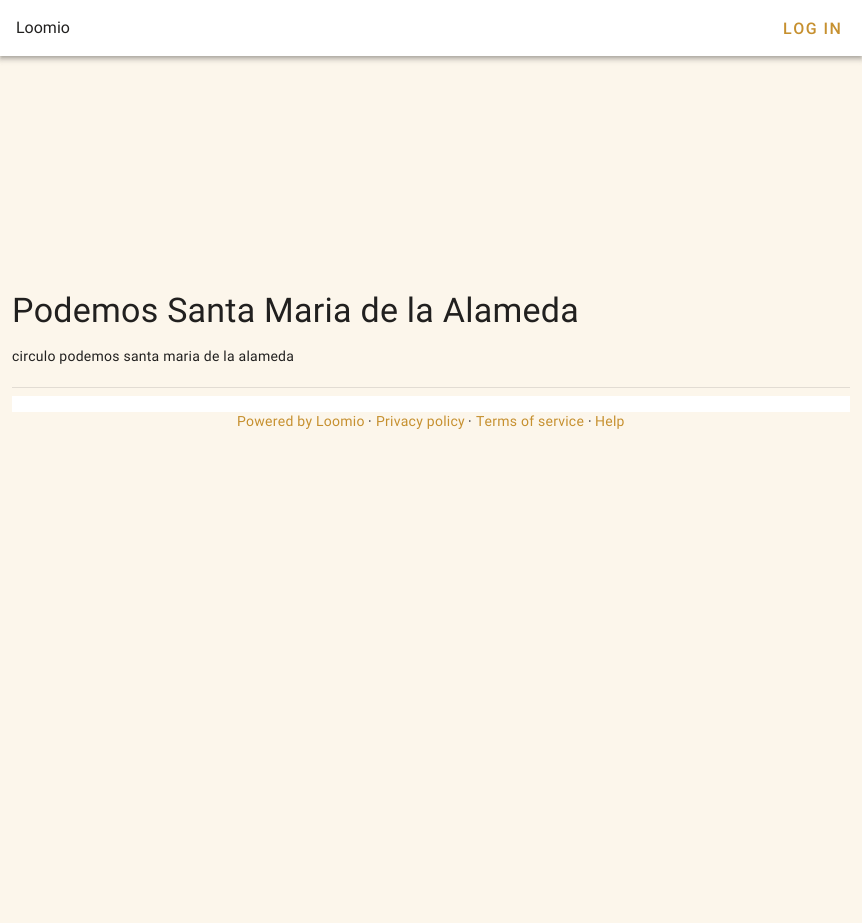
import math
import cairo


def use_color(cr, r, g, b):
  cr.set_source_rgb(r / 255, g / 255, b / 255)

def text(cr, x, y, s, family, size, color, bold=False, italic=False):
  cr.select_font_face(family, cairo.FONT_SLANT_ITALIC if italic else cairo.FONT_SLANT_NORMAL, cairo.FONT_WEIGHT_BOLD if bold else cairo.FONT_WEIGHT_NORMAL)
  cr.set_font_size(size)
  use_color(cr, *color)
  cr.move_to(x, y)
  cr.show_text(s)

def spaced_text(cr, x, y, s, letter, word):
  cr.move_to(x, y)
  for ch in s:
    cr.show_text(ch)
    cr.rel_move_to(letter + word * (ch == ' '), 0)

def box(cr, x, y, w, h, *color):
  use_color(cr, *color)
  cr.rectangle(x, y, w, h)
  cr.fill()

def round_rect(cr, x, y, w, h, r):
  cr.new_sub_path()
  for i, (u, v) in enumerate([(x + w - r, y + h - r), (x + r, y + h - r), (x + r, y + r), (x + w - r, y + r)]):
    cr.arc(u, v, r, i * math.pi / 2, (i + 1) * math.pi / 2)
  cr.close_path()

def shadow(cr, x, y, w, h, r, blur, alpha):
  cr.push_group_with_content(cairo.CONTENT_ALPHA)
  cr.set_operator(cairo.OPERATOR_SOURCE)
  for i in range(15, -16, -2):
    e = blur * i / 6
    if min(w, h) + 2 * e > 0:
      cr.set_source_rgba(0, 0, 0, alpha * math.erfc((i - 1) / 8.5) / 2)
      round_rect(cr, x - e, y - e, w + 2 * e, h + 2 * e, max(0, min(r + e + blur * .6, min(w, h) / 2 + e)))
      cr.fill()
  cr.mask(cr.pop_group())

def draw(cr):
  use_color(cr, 252, 246, 235)
  cr.paint()
  use_color(cr, 0, 0, 0)
  shadow(cr, 0, 1, 862, 56, 0, 5, 0.12)
  shadow(cr, 0, 4, 862, 56, 0, 2.5, 0.14)
  shadow(cr, 1, 3, 860, 54, 0, 2, 0.2)
  box(cr, 0, 0, 862, 56, 255, 255, 255)
  round_rect(cr, 783, 20, 58, 17, 3)
  cr.stroke()
  box(cr, 12, 387, 838, 1, 226, 220, 211)
  box(cr, 12, 396, 838, 16, 255, 255, 255)
  text(cr, 16, 33, "Loomio", "Roboto", 16, (33, 32, 31))
  cr.select_font_face("Roboto Medium")
  use_color(cr, 198, 144, 47)
  spaced_text(cr, 783, 34, "LOG IN", 1.5, 0)
  cr.select_font_face("Roboto")
  cr.set_font_size(34)
  use_color(cr, 33, 32, 31)
  spaced_text(cr, 12, 322, "Podemos Santa Maria de la Alameda", 0.25, 0)
  cr.set_font_size(14)
  spaced_text(cr, 12, 361, "circulo podemos santa maria de la alameda", 0.25, 0)
  use_color(cr, 198, 144, 47)
  spaced_text(cr, 237, 426, "Powered by Loomio", 0.25, 0)
  use_color(cr, 33, 32, 31)
  spaced_text(cr, 368, 426, "·", 0.25, 0)
  use_color(cr, 198, 144, 47)
  spaced_text(cr, 376, 426, "Privacy policy", 0.25, 0)
  use_color(cr, 33, 32, 31)
  spaced_text(cr, 468, 426, "·", 0.25, 0)
  use_color(cr, 198, 144, 47)
  spaced_text(cr, 476, 426, "Terms of service", 0.25, 0)
  use_color(cr, 33, 32, 31)
  spaced_text(cr, 588, 426, "·", 0.25, 0)
  use_color(cr, 198, 144, 47)
  spaced_text(cr, 595, 426, "Help", 0.25, 0)


surface = cairo.ImageSurface(cairo.FORMAT_RGB24, 862, 923)
cr = cairo.Context(surface)
options = cairo.FontOptions()
options.set_hint_metrics(cairo.HINT_METRICS_OFF)
options.set_hint_style(cairo.HINT_STYLE_NONE)
cr.set_font_options(options)
cr.set_miter_limit(4)
draw(cr)
surface.write_to_png("out.png")
